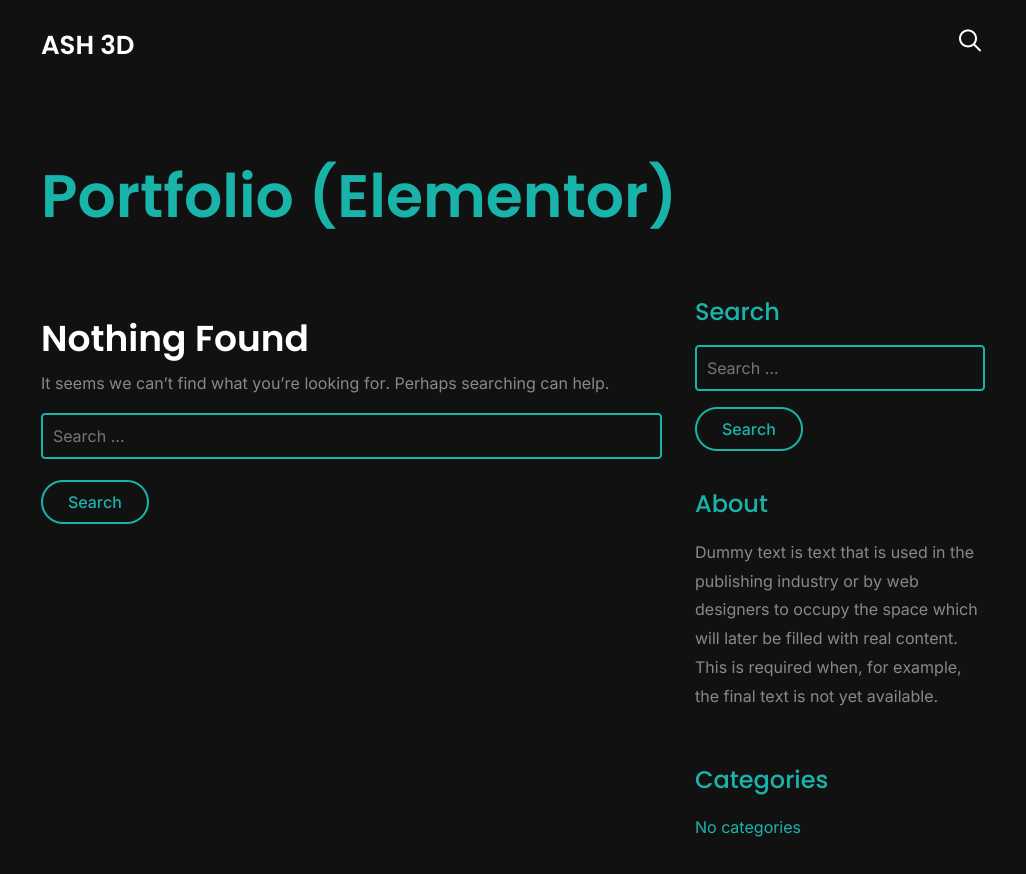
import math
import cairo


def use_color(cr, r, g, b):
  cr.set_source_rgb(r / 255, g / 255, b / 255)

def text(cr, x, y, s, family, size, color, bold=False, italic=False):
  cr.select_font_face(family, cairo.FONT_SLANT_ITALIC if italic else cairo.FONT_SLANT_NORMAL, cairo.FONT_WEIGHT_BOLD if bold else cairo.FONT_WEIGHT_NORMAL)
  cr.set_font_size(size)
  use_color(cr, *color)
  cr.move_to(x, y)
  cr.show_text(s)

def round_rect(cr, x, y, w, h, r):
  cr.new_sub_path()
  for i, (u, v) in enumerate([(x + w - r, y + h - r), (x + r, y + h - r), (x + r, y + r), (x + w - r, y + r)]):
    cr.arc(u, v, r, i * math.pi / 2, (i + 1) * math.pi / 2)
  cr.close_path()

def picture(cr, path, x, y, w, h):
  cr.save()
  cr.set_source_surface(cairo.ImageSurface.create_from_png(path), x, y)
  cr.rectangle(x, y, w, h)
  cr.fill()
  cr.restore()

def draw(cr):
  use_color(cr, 17, 17, 17)
  cr.paint()
  picture(cr, "img_01.png", 959, 29, 22, 23)
  round_rect(cr, 42, 414, 619, 44, 3)
  use_color(cr, 24, 180, 170)
  cr.stroke()
  round_rect(cr, 42, 481, 106, 42, 21)
  cr.stroke()
  round_rect(cr, 696, 346, 288, 44, 3)
  cr.stroke()
  round_rect(cr, 696, 408, 106, 42, 21)
  cr.stroke()
  text(cr, 41, 54, "ASH 3D", "Poppins SemiBold", 26, (255, 255, 255))
  text(cr, 41, 217, "Portfolio (Elementor)", "Poppins SemiBold", 60, (24, 180, 170))
  text(cr, 41, 351, "Nothing Found", "Poppins SemiBold", 36, (255, 255, 255))
  text(cr, 41, 389, "It seems we can’t find what you’re looking for. Perhaps searching can help.", "Inter", 16, (136, 136, 136))
  text(cr, 53, 442, "Search …", "Inter", 16, (117, 117, 117))
  text(cr, 68, 508, "Search", "Inter Medium", 16, (24, 180, 170))
  text(cr, 695, 320, "Search", "Poppins Medium", 24, (24, 180, 170))
  text(cr, 707, 374, "Search …", "Inter", 16, (117, 117, 117))
  text(cr, 722, 435, "Search", "Inter Medium", 16, (24, 180, 170))
  text(cr, 695, 512, "About", "Poppins Medium", 24, (24, 180, 170))
  text(cr, 695, 558, "Dummy text is text that is used in the", "Inter", 16, (136, 136, 136))
  text(cr, 695, 587, "publishing industry or by web", "Inter", 16, (136, 136, 136))
  text(cr, 695, 615, "designers to occupy the space which", "Inter", 16, (136, 136, 136))
  text(cr, 695, 644, "will later be filled with real content.", "Inter", 16, (136, 136, 136))
  text(cr, 695, 673, "This is required when, for example,", "Inter", 16, (136, 136, 136))
  text(cr, 695, 702, "the final text is not yet available.", "Inter", 16, (136, 136, 136))
  text(cr, 695, 788, "Categories", "Poppins Medium", 24, (24, 180, 170))
  text(cr, 695, 833, "No categories", "Inter", 16, (24, 180, 170))


surface = cairo.ImageSurface(cairo.FORMAT_RGB24, 1026, 874)
cr = cairo.Context(surface)
options = cairo.FontOptions()
options.set_hint_metrics(cairo.HINT_METRICS_OFF)
options.set_hint_style(cairo.HINT_STYLE_NONE)
cr.set_font_options(options)
cr.set_miter_limit(4)
draw(cr)
surface.write_to_png("out.png")
